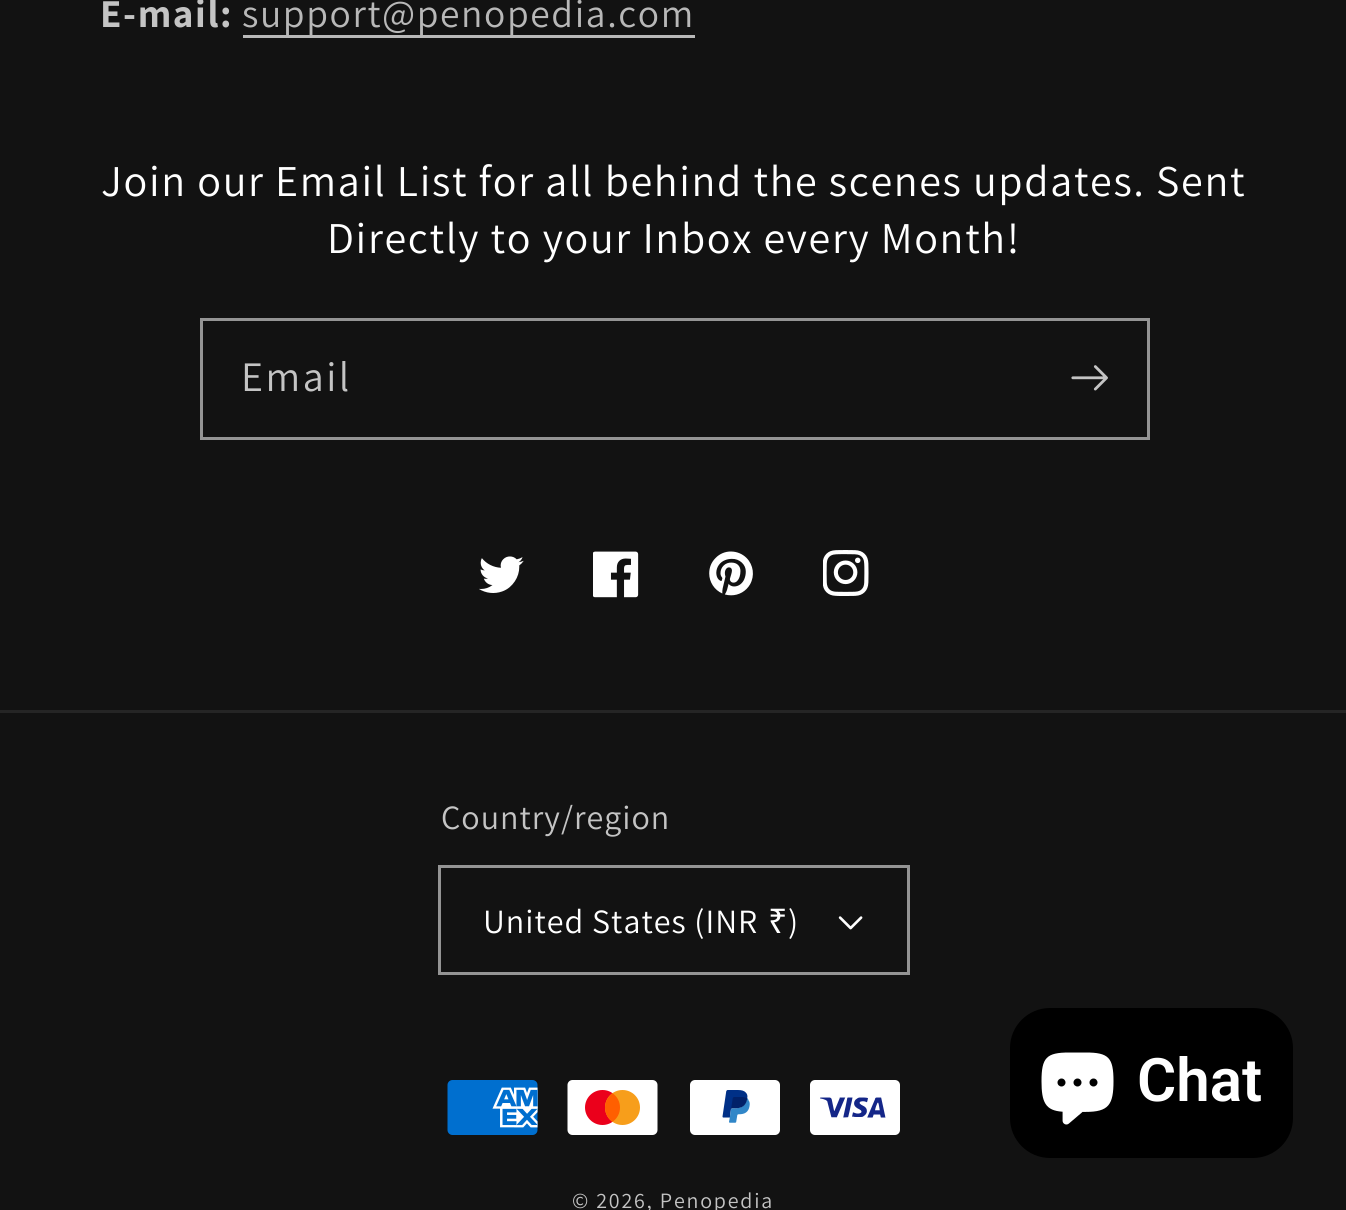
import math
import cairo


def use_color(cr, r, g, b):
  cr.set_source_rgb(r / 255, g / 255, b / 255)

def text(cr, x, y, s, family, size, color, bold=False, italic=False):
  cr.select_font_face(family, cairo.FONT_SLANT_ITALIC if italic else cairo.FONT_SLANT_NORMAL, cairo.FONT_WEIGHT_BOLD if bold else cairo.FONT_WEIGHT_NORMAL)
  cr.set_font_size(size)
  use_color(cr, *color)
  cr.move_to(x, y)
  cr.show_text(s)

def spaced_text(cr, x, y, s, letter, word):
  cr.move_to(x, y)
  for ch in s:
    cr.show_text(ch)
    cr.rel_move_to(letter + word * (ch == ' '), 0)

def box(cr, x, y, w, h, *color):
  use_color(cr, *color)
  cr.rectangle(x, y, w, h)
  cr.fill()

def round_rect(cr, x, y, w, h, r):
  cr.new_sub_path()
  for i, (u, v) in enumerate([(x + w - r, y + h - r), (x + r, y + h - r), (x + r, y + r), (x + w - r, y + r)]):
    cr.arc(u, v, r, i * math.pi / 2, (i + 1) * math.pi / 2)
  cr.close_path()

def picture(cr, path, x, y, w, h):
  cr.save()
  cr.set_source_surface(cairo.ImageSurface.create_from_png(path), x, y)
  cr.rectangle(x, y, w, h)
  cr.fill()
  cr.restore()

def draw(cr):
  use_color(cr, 18, 18, 18)
  cr.paint()
  box(cr, 243, 35, 452, 3, 184, 184, 184)
  cr.rectangle(201.5, 319.5, 947, 119)
  use_color(cr, 148, 148, 148)
  cr.set_line_width(3)
  cr.stroke()
  picture(cr, "img_01.png", 1071, 365, 37, 26)
  picture(cr, "img_02.png", 479, 556, 45, 37)
  picture(cr, "img_03.png", 593, 551, 46, 47)
  picture(cr, "img_04.png", 709, 551, 44, 45)
  picture(cr, "img_05.png", 823, 550, 46, 46)
  box(cr, 0, 710, 1346, 3, 37, 37, 37)
  cr.rectangle(439.5, 866.5, 469, 107)
  use_color(cr, 148, 148, 148)
  cr.stroke()
  picture(cr, "img_06.png", 838, 916, 25, 14)
  picture(cr, "img_07.png", 447, 1080, 91, 55)
  picture(cr, "img_08.png", 567, 1080, 91, 55)
  picture(cr, "img_09.png", 690, 1080, 90, 55)
  picture(cr, "img_10.png", 810, 1080, 90, 55)
  use_color(cr, 0, 0, 0)
  round_rect(cr, 1010, 1008, 283, 150, 40)
  cr.fill()
  picture(cr, "img_11.png", 1041, 1052, 73, 73)
  cr.select_font_face("Assistant", cairo.FONT_SLANT_NORMAL, cairo.FONT_WEIGHT_BOLD)
  cr.set_font_size(39.4)
  use_color(cr, 196, 196, 196)
  spaced_text(cr, 100, 27, "E-mail:", 1.6, 0)
  cr.select_font_face("Assistant")
  use_color(cr, 184, 184, 184)
  spaced_text(cr, 242, 27, "support@penopedia.com", 1.6, 0)
  cr.set_font_size(44)
  use_color(cr, 255, 255, 255)
  spaced_text(cr, 101, 196, "Join our Email List for all behind the scenes updates. Sent", 1.65, 0)
  spaced_text(cr, 327, 253, "Directly to your Inbox every Month!", 1.65, 0)
  cr.set_font_size(42)
  use_color(cr, 196, 196, 196)
  spaced_text(cr, 241, 391, "Email", 2.5, 0)
  cr.set_font_size(34)
  spaced_text(cr, 441, 829, "Country/region", 1, 0)
  use_color(cr, 255, 255, 255)
  spaced_text(cr, 483, 933, "United States (INR", 1, 0)
  cr.select_font_face("Noto Sans")
  spaced_text(cr, 768, 933, "₹", 1, 0)
  cr.select_font_face("Assistant")
  spaced_text(cr, 788, 933, ")", 1, 0)
  cr.set_font_size(21.9)
  use_color(cr, 196, 196, 196)
  spaced_text(cr, 572, 1208, "© 2026, Penopedia", 1.8, 0)
  text(cr, 1137, 1101, "Chat", "Roboto SemiBold", 60, (255, 255, 255))


surface = cairo.ImageSurface(cairo.FORMAT_RGB24, 1346, 1210)
cr = cairo.Context(surface)
options = cairo.FontOptions()
options.set_hint_metrics(cairo.HINT_METRICS_OFF)
options.set_hint_style(cairo.HINT_STYLE_NONE)
cr.set_font_options(options)
cr.set_miter_limit(4)
draw(cr)
surface.write_to_png("out.png")
